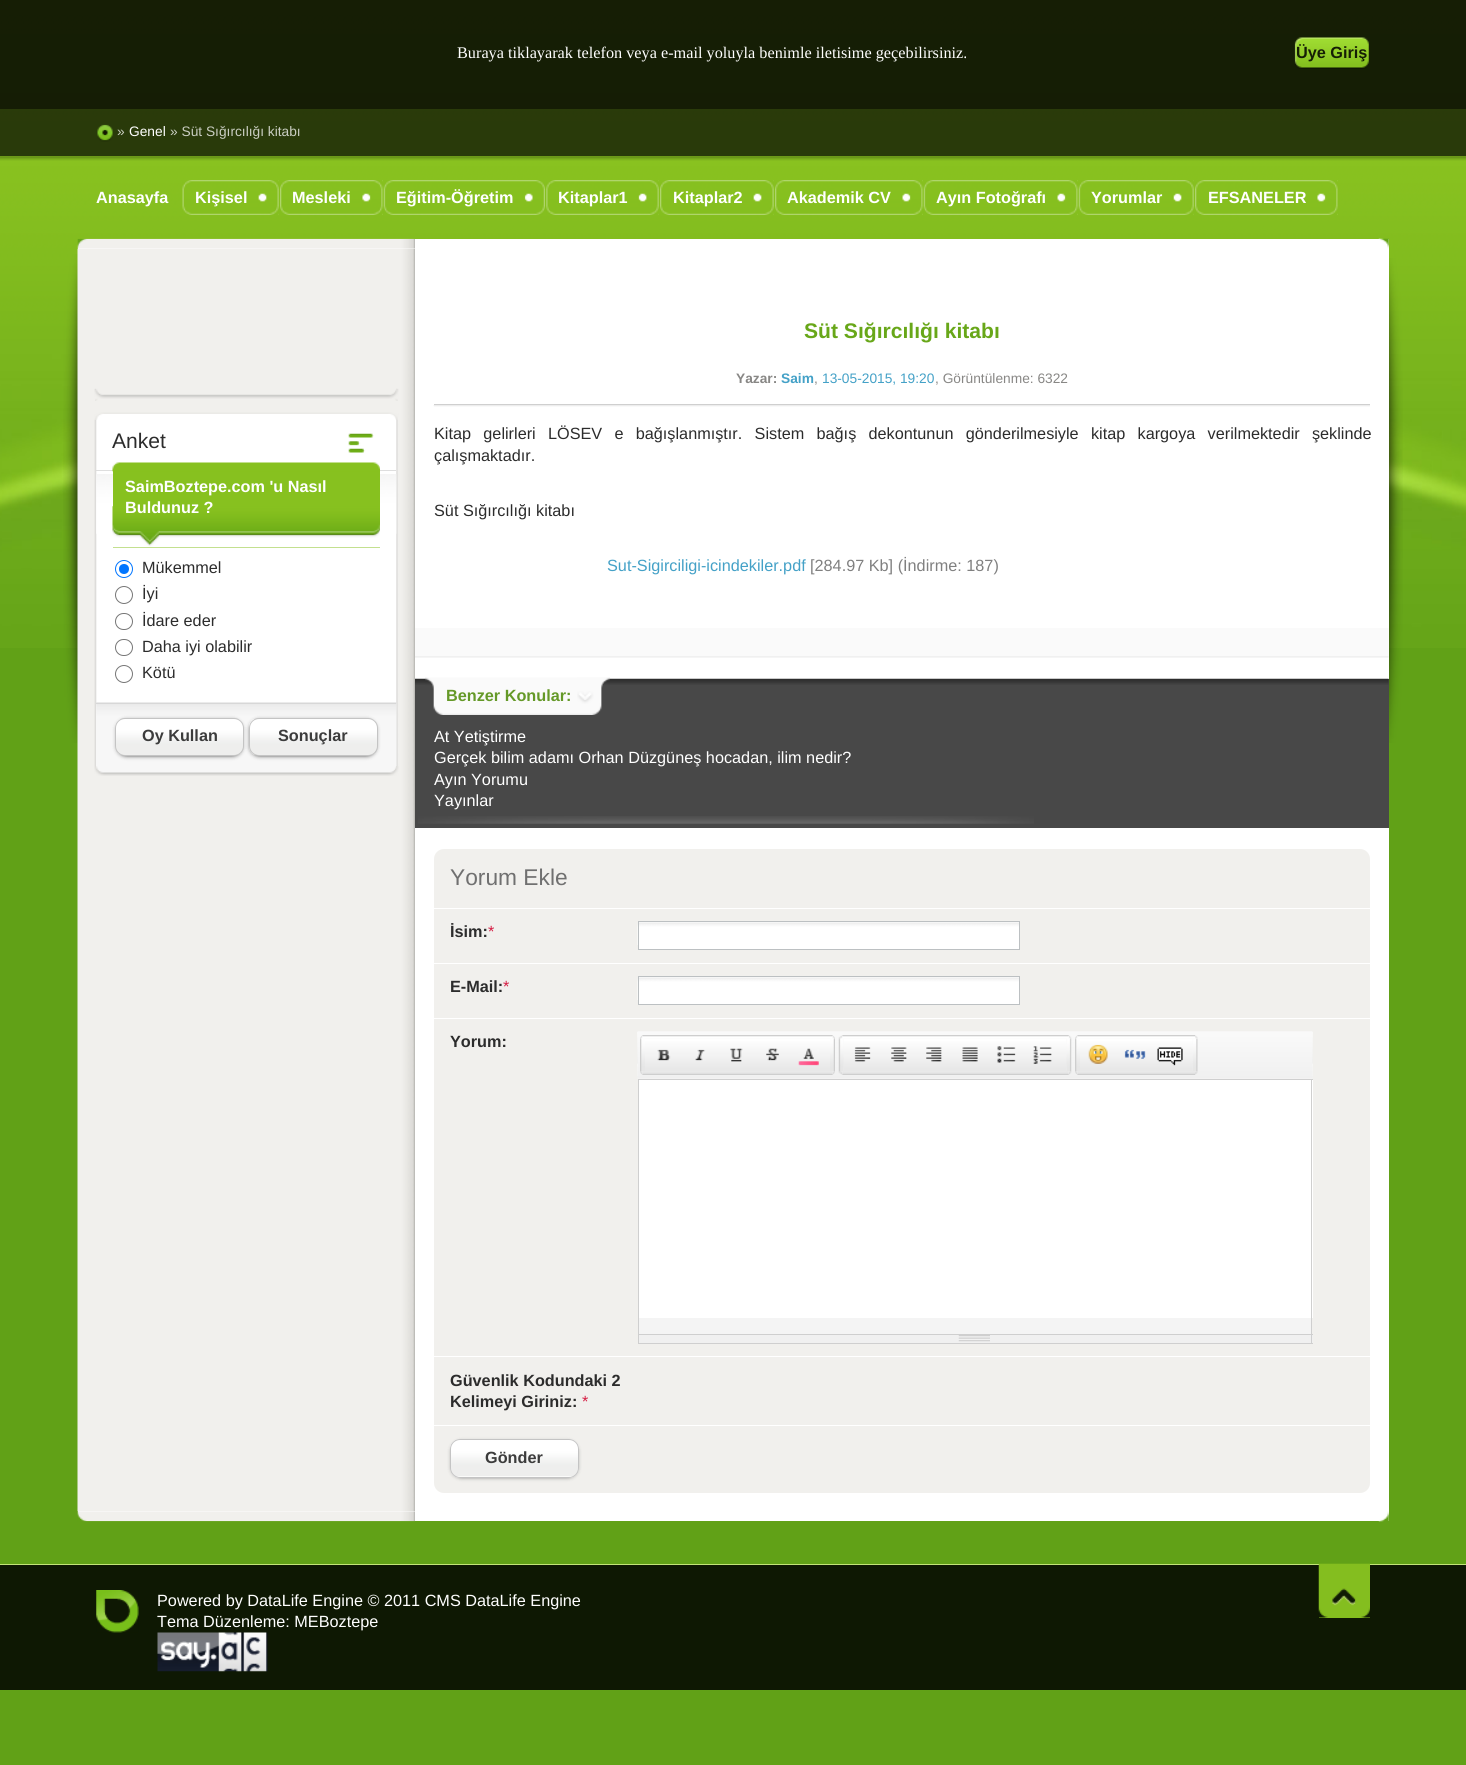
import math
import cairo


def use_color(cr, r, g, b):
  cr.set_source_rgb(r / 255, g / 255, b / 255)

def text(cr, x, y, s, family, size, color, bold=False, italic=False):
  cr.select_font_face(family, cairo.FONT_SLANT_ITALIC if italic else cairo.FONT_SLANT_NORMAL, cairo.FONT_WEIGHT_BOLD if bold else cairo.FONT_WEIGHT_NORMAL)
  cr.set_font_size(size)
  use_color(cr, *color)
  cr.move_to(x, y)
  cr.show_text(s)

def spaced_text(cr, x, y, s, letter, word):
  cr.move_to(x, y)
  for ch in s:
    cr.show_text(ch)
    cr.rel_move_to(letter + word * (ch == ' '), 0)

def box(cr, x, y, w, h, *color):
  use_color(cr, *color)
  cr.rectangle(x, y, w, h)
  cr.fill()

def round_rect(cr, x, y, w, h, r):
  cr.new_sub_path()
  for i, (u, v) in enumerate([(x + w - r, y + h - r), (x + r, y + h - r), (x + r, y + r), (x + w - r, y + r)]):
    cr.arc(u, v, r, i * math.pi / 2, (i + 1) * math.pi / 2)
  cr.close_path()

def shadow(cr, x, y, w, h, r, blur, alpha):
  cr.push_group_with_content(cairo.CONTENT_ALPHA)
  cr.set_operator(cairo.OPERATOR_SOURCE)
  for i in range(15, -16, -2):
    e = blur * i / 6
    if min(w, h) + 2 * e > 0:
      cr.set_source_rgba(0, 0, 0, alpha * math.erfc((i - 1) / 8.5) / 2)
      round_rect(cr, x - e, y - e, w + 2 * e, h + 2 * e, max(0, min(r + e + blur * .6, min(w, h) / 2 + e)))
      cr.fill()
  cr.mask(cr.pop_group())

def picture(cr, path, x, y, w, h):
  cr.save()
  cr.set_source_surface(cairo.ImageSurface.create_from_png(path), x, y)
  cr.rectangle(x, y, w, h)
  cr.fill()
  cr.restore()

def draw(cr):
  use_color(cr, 97, 161, 23)
  cr.paint()
  picture(cr, "img_01.png", 0, 0, 1466, 332)
  picture(cr, "img_02.png", 0, 332, 1466, 316)
  picture(cr, "img_03.png", 0, 156, 1466, 5)
  cr.set_source_rgba(0, 0, 0, 0.85)
  cr.rectangle(0, 0, 1466, 109)
  cr.fill()
  picture(cr, "img_04.png", 1294, 37, 75, 32)
  cr.set_source_rgba(0, 0, 0, 0.7)
  cr.rectangle(0, 109, 1466, 47)
  cr.fill()
  picture(cr, "img_05.png", 97, 124, 16, 18)
  picture(cr, "img_06.png", 182, 180, 97, 35)
  picture(cr, "img_07.png", 258, 180, 21, 35)
  picture(cr, "img_08.png", 280, 180, 103, 35)
  picture(cr, "img_09.png", 362, 180, 21, 35)
  picture(cr, "img_10.png", 383, 180, 141, 35)
  picture(cr, "img_11.png", 524, 180, 21, 35)
  picture(cr, "img_12.png", 546, 180, 113, 35)
  picture(cr, "img_13.png", 638, 180, 21, 35)
  picture(cr, "img_14.png", 660, 180, 114, 35)
  picture(cr, "img_15.png", 753, 180, 21, 35)
  picture(cr, "img_16.png", 775, 180, 148, 35)
  picture(cr, "img_17.png", 902, 180, 21, 35)
  picture(cr, "img_18.png", 923, 180, 155, 35)
  picture(cr, "img_19.png", 1057, 180, 21, 35)
  picture(cr, "img_20.png", 1078, 180, 116, 35)
  picture(cr, "img_21.png", 1173, 180, 21, 35)
  picture(cr, "img_22.png", 1195, 180, 143, 35)
  picture(cr, "img_23.png", 1317, 180, 21, 35)
  picture(cr, "img_24.png", 63, 254, 15, 489)
  picture(cr, "img_25.png", 1389, 258, 14, 485)
  picture(cr, "img_28.png", 77, 248, 338, 1264)
  box(cr, 78, 239, 1311, 10, 255, 255, 255)
  picture(cr, "img_26.png", 1378, 238, 11, 11)
  picture(cr, "img_27.png", 77, 238, 338, 11)
  box(cr, 415, 249, 974, 1262, 255, 255, 255)
  picture(cr, "img_30.png", 95, 394, 303, 7)
  picture(cr, "img_29.png", 94, 388, 305, 11)
  box(cr, 96, 414, 303, 359, 255, 255, 255)
  picture(cr, "img_31.png", 94, 413, 305, 360)
  picture(cr, "img_32.png", 94, 412, 304, 8)
  box(cr, 96, 470, 300, 1, 222, 222, 222)
  picture(cr, "img_33.png", 348, 433, 26, 20)
  picture(cr, "img_34.png", 96, 474, 301, 60)
  box(cr, 113, 471, 267, 77, 135, 193, 31)
  picture(cr, "img_35.png", 112, 462, 268, 10)
  picture(cr, "img_36.png", 112, 506, 268, 42)
  cr.arc(124, 569, 8.5, 0, 2 * math.pi)
  use_color(cr, 0, 117, 255)
  cr.set_line_width(1)
  cr.stroke()
  cr.arc(124, 569, 5, 0, 2 * math.pi)
  cr.fill()
  cr.arc(124, 595, 8.5, 0, 2 * math.pi)
  use_color(cr, 118, 118, 118)
  cr.stroke()
  round_rect(cr, 115.5, 613.5, 17, 16, 8)
  cr.stroke()
  round_rect(cr, 115.5, 639.5, 17, 16, 8)
  cr.stroke()
  cr.arc(124, 674, 8.5, 0, 2 * math.pi)
  cr.stroke()
  box(cr, 96, 704, 300, 69, 247, 247, 247)
  picture(cr, "img_37.png", 96, 702, 301, 64)
  box(cr, 96, 703, 300, 1, 215, 215, 215)
  use_color(cr, 0, 0, 0)
  shadow(cr, 118, 721, 123, 34, 8, 2.5, 1)
  picture(cr, "img_38.png", 115, 719, 129, 36)
  round_rect(cr, 115.5, 718.5, 128, 37, 9.5)
  use_color(cr, 196, 196, 196)
  cr.stroke()
  use_color(cr, 0, 0, 0)
  shadow(cr, 251, 721, 124, 34, 8, 2.5, 1)
  picture(cr, "img_39.png", 249, 719, 129, 36)
  round_rect(cr, 249.5, 718.5, 128, 37, 9.5)
  use_color(cr, 196, 196, 196)
  cr.stroke()
  picture(cr, "img_40.png", 94, 766, 305, 10)
  picture(cr, "img_41.png", 415, 628, 974, 30)
  picture(cr, "img_42.png", 433, 405, 937, 2)
  box(cr, 434, 404, 936, 1, 207, 207, 207)
  box(cr, 415, 679, 974, 149, 72, 72, 72)
  picture(cr, "img_43.png", 418, 816, 616, 8)
  picture(cr, "img_44.png", 415, 678, 974, 7)
  picture(cr, "img_45.png", 425, 677, 185, 38)
  picture(cr, "img_46.png", 577, 677, 33, 38)
  use_color(cr, 241, 240, 237)
  round_rect(cr, 434, 849, 936, 644, 10)
  cr.fill()
  box(cr, 433, 908, 938, 1, 255, 255, 255)
  box(cr, 639, 922, 380, 27, 255, 255, 255)
  picture(cr, "img_47.png", 637, 922, 382, 23)
  cr.rectangle(638.5, 921.5, 381, 28)
  use_color(cr, 188, 192, 194)
  cr.stroke()
  box(cr, 433, 963, 938, 1, 255, 255, 255)
  box(cr, 639, 977, 380, 27, 255, 255, 255)
  picture(cr, "img_48.png", 637, 977, 382, 23)
  cr.rectangle(638.5, 976.5, 381, 28)
  use_color(cr, 188, 192, 194)
  cr.stroke()
  box(cr, 433, 1018, 938, 1, 255, 255, 255)
  box(cr, 638, 1343, 675, 1, 207, 207, 207)
  picture(cr, "img_49.png", 637, 1031, 676, 48)
  picture(cr, "img_50.png", 637, 1032, 676, 46)
  picture(cr, "img_51.png", 640, 1035, 3, 4)
  picture(cr, "img_52.png", 642, 1035, 191, 4)
  picture(cr, "img_53.png", 832, 1035, 3, 4)
  picture(cr, "img_54.png", 640, 1038, 5, 34)
  picture(cr, "img_55.png", 645, 1039, 185, 32)
  picture(cr, "img_56.png", 657, 1049, 14, 12)
  picture(cr, "img_57.png", 695, 1049, 11, 12)
  picture(cr, "img_58.png", 730, 1048, 13, 14)
  picture(cr, "img_59.png", 766, 1048, 13, 13)
  picture(cr, "img_60.png", 798, 1048, 21, 18)
  picture(cr, "img_61.png", 830, 1038, 5, 34)
  picture(cr, "img_62.png", 640, 1071, 3, 4)
  picture(cr, "img_63.png", 642, 1071, 191, 4)
  picture(cr, "img_64.png", 832, 1071, 3, 4)
  picture(cr, "img_65.png", 838, 1035, 5, 4)
  picture(cr, "img_66.png", 842, 1035, 227, 4)
  picture(cr, "img_67.png", 1069, 1035, 3, 4)
  picture(cr, "img_68.png", 838, 1038, 6, 34)
  picture(cr, "img_69.png", 844, 1039, 222, 32)
  picture(cr, "img_70.png", 854, 1047, 17, 15)
  picture(cr, "img_71.png", 891, 1047, 16, 15)
  picture(cr, "img_72.png", 926, 1047, 16, 15)
  picture(cr, "img_73.png", 962, 1047, 16, 15)
  picture(cr, "img_74.png", 997, 1046, 19, 17)
  picture(cr, "img_75.png", 1033, 1046, 19, 18)
  picture(cr, "img_76.png", 1066, 1038, 6, 34)
  picture(cr, "img_77.png", 838, 1071, 5, 4)
  picture(cr, "img_78.png", 842, 1071, 227, 4)
  picture(cr, "img_79.png", 1069, 1071, 3, 4)
  picture(cr, "img_51.png", 1075, 1035, 3, 4)
  picture(cr, "img_80.png", 1077, 1035, 118, 4)
  picture(cr, "img_81.png", 1195, 1035, 3, 4)
  picture(cr, "img_54.png", 1075, 1038, 5, 34)
  picture(cr, "img_82.png", 1080, 1039, 113, 32)
  picture(cr, "img_83.png", 1088, 1044, 20, 20)
  picture(cr, "img_84.png", 1124, 1049, 22, 10)
  picture(cr, "img_85.png", 1157, 1047, 26, 19)
  picture(cr, "img_86.png", 1192, 1039, 6, 33)
  picture(cr, "img_62.png", 1075, 1071, 3, 4)
  picture(cr, "img_87.png", 1077, 1071, 118, 4)
  picture(cr, "img_88.png", 1195, 1071, 3, 4)
  box(cr, 639, 1080, 674, 238, 255, 255, 255)
  box(cr, 638, 1079, 675, 1, 207, 207, 207)
  box(cr, 1311, 1079, 1, 255, 207, 207, 207)
  box(cr, 638, 1079, 1, 255, 207, 207, 207)
  box(cr, 639, 1318, 672, 16, 244, 244, 244)
  box(cr, 639, 1335, 674, 8, 240, 240, 240)
  picture(cr, "img_89.png", 958, 1335, 32, 7)
  box(cr, 638, 1334, 675, 1, 207, 207, 207)
  box(cr, 1311, 1334, 1, 9, 207, 207, 207)
  box(cr, 638, 1334, 1, 9, 207, 207, 207)
  box(cr, 433, 1356, 938, 1, 255, 255, 255)
  box(cr, 434, 1425, 936, 1, 255, 255, 255)
  use_color(cr, 0, 0, 0)
  shadow(cr, 453, 1443, 123, 33, 8, 2.5, 1)
  use_color(cr, 255, 255, 255)
  round_rect(cr, 450, 1439, 129, 39, 10)
  cr.fill()
  picture(cr, "img_90.png", 450, 1440, 129, 37)
  round_rect(cr, 450.5, 1439.5, 128, 38, 9.5)
  use_color(cr, 196, 196, 196)
  cr.stroke()
  box(cr, 78, 1511, 1311, 10, 255, 255, 255)
  picture(cr, "img_91.png", 1378, 1511, 11, 11)
  picture(cr, "img_92.png", 77, 1511, 338, 11)
  box(cr, 0, 1565, 1466, 125, 14, 24, 3)
  box(cr, 0, 1564, 1466, 1, 193, 228, 120)
  picture(cr, "img_93.png", 96, 1590, 43, 43)
  picture(cr, "img_94.png", 157, 1632, 111, 40)
  box(cr, 1319, 1617, 51, 1, 132, 190, 31)
  picture(cr, "img_95.png", 1318, 1563, 52, 55)
  text(cr, 457, 58, "Buraya tiklayarak telefon veya e-mail yoluyla benimle iletisime geçebilirsiniz.", "Liberation Serif", 16.25, (255, 255, 255))
  text(cr, 1296, 58, "Üye Giriş", "Liberation Sans", 16.25, (21, 30, 5), bold=True)
  text(cr, 117, 136, "»", "Liberation Sans", 13.75, (202, 206, 194))
  text(cr, 129, 136, "Genel", "Liberation Sans", 13.75, (255, 255, 255))
  text(cr, 170, 136, "» Süt Sığırcılığı kitabı", "Liberation Sans", 13.75, (202, 206, 194))
  text(cr, 96, 203, "Anasayfa", "Liberation Sans", 16.25, (255, 255, 255), bold=True)
  text(cr, 195, 203, "Kişisel", "Liberation Sans", 16.25, (255, 255, 255), bold=True)
  text(cr, 292, 203, "Mesleki", "Liberation Sans", 16.25, (255, 255, 255), bold=True)
  text(cr, 396, 203, "Eğitim-Öğretim", "Liberation Sans", 16.25, (255, 255, 255), bold=True)
  text(cr, 558, 203, "Kitaplar1", "Liberation Sans", 16.25, (255, 255, 255), bold=True)
  text(cr, 673, 203, "Kitaplar2", "Liberation Sans", 16.25, (255, 255, 255), bold=True)
  text(cr, 787, 203, "Akademik CV", "Liberation Sans", 16.25, (255, 255, 255), bold=True)
  text(cr, 936, 203, "Ayın Fotoğrafı", "Liberation Sans", 16.25, (255, 255, 255), bold=True)
  text(cr, 1091, 203, "Yorumlar", "Liberation Sans", 16.25, (255, 255, 255), bold=True)
  text(cr, 1208, 203, "EFSANELER", "Liberation Sans", 16.25, (255, 255, 255), bold=True)
  text(cr, 112, 448, "Anket", "Liberation Sans", 21.1, (44, 44, 44))
  text(cr, 125, 492, "SaimBoztepe.com 'u Nasıl", "Liberation Sans", 16.25, (255, 255, 255), bold=True)
  text(cr, 125, 513, "Buldunuz ?", "Liberation Sans", 16.25, (255, 255, 255), bold=True)
  text(cr, 142, 573, "Mükemmel", "Liberation Sans", 16.25, (44, 44, 44))
  text(cr, 142, 599, "İyi", "Liberation Sans", 16.25, (44, 44, 44))
  text(cr, 142, 626, "İdare eder", "Liberation Sans", 16.25, (44, 44, 44))
  text(cr, 142, 652, "Daha iyi olabilir", "Liberation Sans", 16.25, (44, 44, 44))
  text(cr, 142, 678, "Kötü", "Liberation Sans", 16.25, (44, 44, 44))
  text(cr, 142, 741, "Oy Kullan", "Liberation Sans", 16.25, (60, 60, 60), bold=True)
  text(cr, 278, 741, "Sonuçlar", "Liberation Sans", 16.25, (60, 60, 60), bold=True)
  text(cr, 804, 338, "Süt Sığırcılığı kitabı", "Liberation Sans", 21.1, (104, 167, 25), bold=True)
  text(cr, 736, 383, "Yazar:", "Liberation Sans", 13.75, (136, 135, 133), bold=True)
  text(cr, 781, 383, "Saim", "Liberation Sans", 13.75, (68, 161, 199), bold=True)
  text(cr, 814, 383, ",", "Liberation Sans", 13.75, (136, 135, 133))
  text(cr, 822, 383, "13-05-2015, 19:20", "Liberation Sans", 13.75, (68, 161, 199))
  text(cr, 935, 383, ", Görüntülenme: 6322", "Liberation Sans", 13.75, (136, 135, 133))
  cr.set_font_size(16.25)
  use_color(cr, 44, 44, 44)
  spaced_text(cr, 434, 439, "Kitap gelirleri LÖSEV e bağışlanmıştır. Sistem bağış dekontunun gönderilmesiyle kitap kargoya verilmektedir şeklinde", 0, 7.75)
  text(cr, 434, 461, "çalışmaktadır.", "Liberation Sans", 16.25, (44, 44, 44))
  text(cr, 434, 516, "Süt Sığırcılığı kitabı", "Liberation Sans", 16.25, (44, 44, 44))
  text(cr, 607, 571, "Sut-Sigirciligi-icindekiler.pdf", "Liberation Sans", 16.25, (68, 161, 199))
  text(cr, 810, 571, "[284.97 Kb] (İndirme: 187)", "Liberation Sans", 16.25, (128, 128, 128))
  text(cr, 446, 701, "Benzer Konular:", "Liberation Sans", 16.25, (101, 153, 40), bold=True)
  text(cr, 434, 742, "At Yetiştirme", "Liberation Sans", 16.25, (255, 255, 255))
  text(cr, 434, 763, "Gerçek bilim adamı Orhan Düzgüneş hocadan, ilim nedir?", "Liberation Sans", 16.25, (255, 255, 255))
  text(cr, 434, 785, "Ayın Yorumu", "Liberation Sans", 16.25, (255, 255, 255))
  text(cr, 434, 806, "Yayınlar", "Liberation Sans", 16.25, (255, 255, 255))
  text(cr, 450, 885, "Yorum Ekle", "Liberation Sans", 22.75, (112, 112, 112))
  text(cr, 450, 937, "İsim:", "Liberation Sans", 16.25, (44, 44, 44), bold=True)
  text(cr, 488, 937, "*", "Liberation Sans", 16.25, (213, 30, 68))
  text(cr, 450, 992, "E-Mail:", "Liberation Sans", 16.25, (44, 44, 44), bold=True)
  text(cr, 503, 992, "*", "Liberation Sans", 16.25, (213, 30, 68))
  text(cr, 450, 1047, "Yorum:", "Liberation Sans", 16.25, (44, 44, 44), bold=True)
  text(cr, 450, 1386, "Güvenlik Kodundaki 2", "Liberation Sans", 16.25, (44, 44, 44), bold=True)
  text(cr, 450, 1407, "Kelimeyi Giriniz:", "Liberation Sans", 16.25, (44, 44, 44), bold=True)
  text(cr, 582, 1407, "*", "Liberation Sans", 16.25, (213, 30, 68))
  text(cr, 485, 1463, "Gönder", "Liberation Sans", 16.25, (60, 60, 60), bold=True)
  text(cr, 157, 1606, "Powered by DataLife Engine © 2011 CMS DataLife Engine", "Liberation Sans", 16.25, (255, 255, 255))
  text(cr, 157, 1627, "Tema Düzenleme: MEBoztepe", "Liberation Sans", 16.25, (255, 255, 255))


surface = cairo.ImageSurface(cairo.FORMAT_RGB24, 1466, 1765)
cr = cairo.Context(surface)
options = cairo.FontOptions()
options.set_hint_metrics(cairo.HINT_METRICS_OFF)
options.set_hint_style(cairo.HINT_STYLE_NONE)
cr.set_font_options(options)
cr.set_miter_limit(4)
draw(cr)
surface.write_to_png("out.png")
